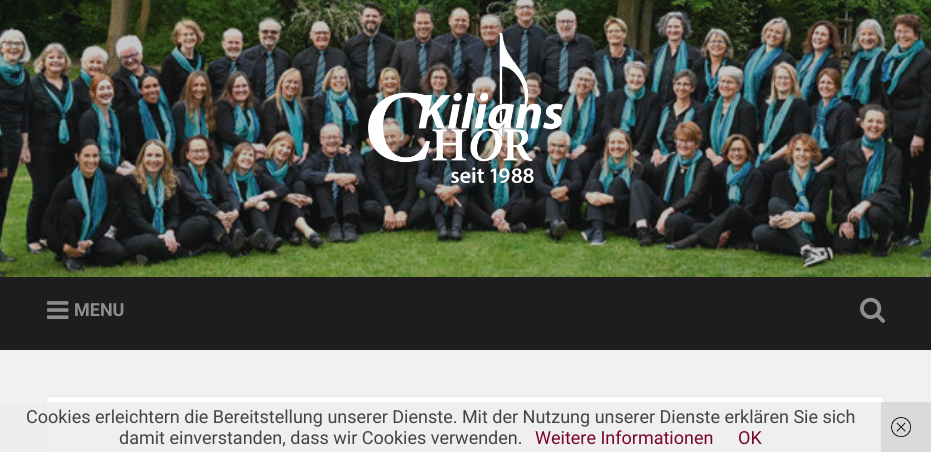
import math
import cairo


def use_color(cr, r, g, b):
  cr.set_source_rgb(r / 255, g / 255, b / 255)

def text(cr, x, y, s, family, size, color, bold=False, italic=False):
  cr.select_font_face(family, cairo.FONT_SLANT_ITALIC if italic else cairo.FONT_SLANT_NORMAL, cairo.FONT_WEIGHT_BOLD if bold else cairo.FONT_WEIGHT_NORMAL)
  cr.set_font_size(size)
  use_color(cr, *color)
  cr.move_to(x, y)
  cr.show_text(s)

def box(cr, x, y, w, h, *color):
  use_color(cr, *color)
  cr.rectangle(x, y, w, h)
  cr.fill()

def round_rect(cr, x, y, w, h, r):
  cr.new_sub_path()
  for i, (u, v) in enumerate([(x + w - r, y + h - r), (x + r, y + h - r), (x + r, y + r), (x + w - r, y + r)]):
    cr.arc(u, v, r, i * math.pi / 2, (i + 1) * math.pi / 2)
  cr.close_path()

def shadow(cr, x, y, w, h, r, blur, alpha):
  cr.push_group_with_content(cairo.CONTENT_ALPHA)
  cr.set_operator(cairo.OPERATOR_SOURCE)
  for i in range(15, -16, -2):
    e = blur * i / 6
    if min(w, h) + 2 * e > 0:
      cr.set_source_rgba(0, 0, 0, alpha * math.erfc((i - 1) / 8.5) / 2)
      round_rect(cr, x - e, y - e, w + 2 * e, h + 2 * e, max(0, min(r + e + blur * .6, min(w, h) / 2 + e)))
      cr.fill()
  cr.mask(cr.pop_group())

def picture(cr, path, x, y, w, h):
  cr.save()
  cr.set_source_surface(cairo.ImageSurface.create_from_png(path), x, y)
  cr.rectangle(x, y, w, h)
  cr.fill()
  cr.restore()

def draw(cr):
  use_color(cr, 241, 241, 241)
  cr.paint()
  picture(cr, "img_01.png", 0, 0, 931, 277)
  picture(cr, "img_02.png", 368, 33, 195, 150)
  box(cr, 0, 277, 931, 73, 29, 29, 29)
  picture(cr, "img_03.png", 47, 301, 22, 18)
  picture(cr, "img_04.png", 860, 297, 25, 26)
  use_color(cr, 0, 0, 0)
  shadow(cr, 47, 398, 837, 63, 3, 2, 0.1)
  use_color(cr, 255, 255, 255)
  round_rect(cr, 47, 397, 837, 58, 3)
  cr.fill()
  cr.set_source_rgba(0.933, 0.933, 0.933, 0.9)
  cr.rectangle(0, 402, 881, 50)
  cr.fill()
  box(cr, 881, 402, 50, 50, 218, 218, 218)
  picture(cr, "img_05.png", 891, 417, 20, 20)
  text(cr, 74, 316, "MENU", "Roboto", 18, (142, 142, 142), bold=True)
  text(cr, 26, 423, "Cookies erleichtern die Bereitstellung unserer Dienste. Mit der Nutzung unserer Dienste erklären Sie sich", "Roboto", 18, (68, 68, 68))
  text(cr, 119, 444, "damit einverstanden, dass wir Cookies verwenden.", "Roboto", 18, (68, 68, 68))
  text(cr, 535, 444, "Weitere Informationen", "Roboto", 18, (122, 7, 39))
  text(cr, 738, 444, "OK", "Roboto", 18, (122, 7, 39))


surface = cairo.ImageSurface(cairo.FORMAT_RGB24, 931, 452)
cr = cairo.Context(surface)
options = cairo.FontOptions()
options.set_hint_metrics(cairo.HINT_METRICS_OFF)
options.set_hint_style(cairo.HINT_STYLE_NONE)
cr.set_font_options(options)
cr.set_miter_limit(4)
draw(cr)
surface.write_to_png("out.png")
